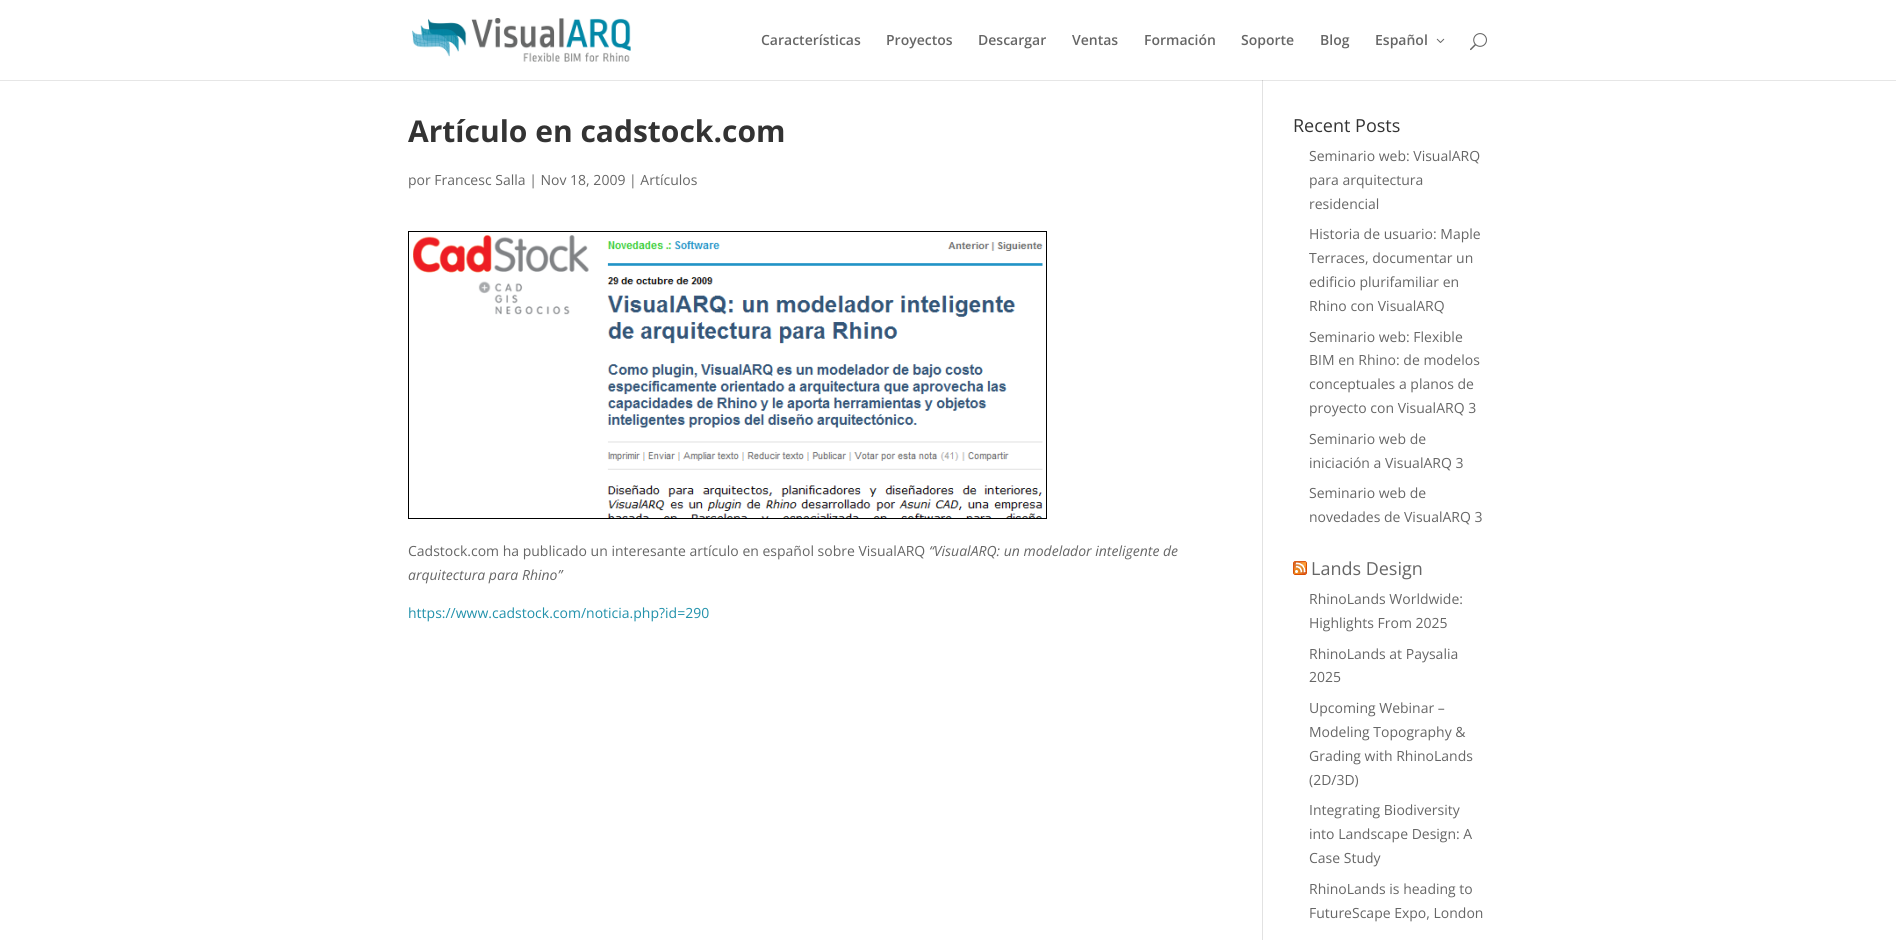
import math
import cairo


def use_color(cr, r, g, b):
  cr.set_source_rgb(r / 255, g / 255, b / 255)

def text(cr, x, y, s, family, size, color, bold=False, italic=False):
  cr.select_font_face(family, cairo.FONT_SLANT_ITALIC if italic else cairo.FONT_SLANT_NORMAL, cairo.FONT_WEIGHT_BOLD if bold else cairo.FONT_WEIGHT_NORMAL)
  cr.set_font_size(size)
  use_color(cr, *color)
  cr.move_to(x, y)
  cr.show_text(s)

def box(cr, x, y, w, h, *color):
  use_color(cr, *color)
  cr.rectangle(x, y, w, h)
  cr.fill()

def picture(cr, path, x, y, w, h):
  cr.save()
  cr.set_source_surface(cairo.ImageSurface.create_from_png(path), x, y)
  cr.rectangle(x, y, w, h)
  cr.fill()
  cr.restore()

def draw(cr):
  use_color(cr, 255, 255, 255)
  cr.paint()
  box(cr, 0, 80, 1896, 1, 230, 230, 230)
  picture(cr, "img_01.png", 412, 18, 219, 44)
  picture(cr, "img_02.png", 1436, 38, 9, 5)
  picture(cr, "img_03.png", 1470, 33, 17, 18)
  box(cr, 1262, 81, 1, 859, 226, 226, 226)
  box(cr, 1262, 80, 1, 1, 203, 203, 203)
  picture(cr, "img_04.png", 408, 231, 639, 288)
  picture(cr, "img_05.png", 1293, 561, 14, 14)
  text(cr, 761, 45, "Características", "Open Sans SemiBold", 14, (102, 102, 102))
  text(cr, 886, 45, "Proyectos", "Open Sans SemiBold", 14, (102, 102, 102))
  text(cr, 978, 45, "Descargar", "Open Sans SemiBold", 14, (102, 102, 102))
  text(cr, 1072, 45, "Ventas", "Open Sans SemiBold", 14, (102, 102, 102))
  text(cr, 1144, 45, "Formación", "Open Sans SemiBold", 14, (102, 102, 102))
  text(cr, 1241, 45, "Soporte", "Open Sans SemiBold", 14, (102, 102, 102))
  text(cr, 1320, 45, "Blog", "Open Sans SemiBold", 14, (102, 102, 102))
  text(cr, 1375, 45, "Español", "Open Sans SemiBold", 14, (102, 102, 102))
  text(cr, 408, 142, "Artículo en cadstock.com", "Open Sans", 30, (51, 51, 51), bold=True)
  text(cr, 408, 185, "por Francesc Salla | Nov 18, 2009 | Artículos", "Open Sans", 14, (102, 102, 102))
  text(cr, 408, 556, "Cadstock.com ha publicado un interesante artículo en español sobre VisualARQ", "Open Sans", 14, (102, 102, 102))
  text(cr, 929, 556, "“VisualARQ: un modelador inteligente de", "Open Sans", 14, (102, 102, 102), italic=True)
  text(cr, 408, 580, "arquitectura para Rhino”", "Open Sans", 14, (102, 102, 102), italic=True)
  text(cr, 408, 618, "https://www.cadstock.com/noticia.php?id=290", "Open Sans", 14, (33, 145, 171))
  text(cr, 1293, 132, "Recent Posts", "Open Sans", 18, (51, 51, 51))
  text(cr, 1309, 161, "Seminario web: VisualARQ", "Open Sans", 14, (102, 102, 102))
  text(cr, 1309, 185, "para arquitectura", "Open Sans", 14, (102, 102, 102))
  text(cr, 1309, 209, "residencial", "Open Sans", 14, (102, 102, 102))
  text(cr, 1309, 239, "Historia de usuario: Maple", "Open Sans", 14, (102, 102, 102))
  text(cr, 1309, 263, "Terraces, documentar un", "Open Sans", 14, (102, 102, 102))
  text(cr, 1309, 287, "edificio plurifamiliar en", "Open Sans", 14, (102, 102, 102))
  text(cr, 1309, 311, "Rhino con VisualARQ", "Open Sans", 14, (102, 102, 102))
  text(cr, 1309, 342, "Seminario web: Flexible", "Open Sans", 14, (102, 102, 102))
  text(cr, 1309, 365, "BIM en Rhino: de modelos", "Open Sans", 14, (102, 102, 102))
  text(cr, 1309, 389, "conceptuales a planos de", "Open Sans", 14, (102, 102, 102))
  text(cr, 1309, 413, "proyecto con VisualARQ 3", "Open Sans", 14, (102, 102, 102))
  text(cr, 1309, 444, "Seminario web de", "Open Sans", 14, (102, 102, 102))
  text(cr, 1309, 468, "iniciación a VisualARQ 3", "Open Sans", 14, (102, 102, 102))
  text(cr, 1309, 498, "Seminario web de", "Open Sans", 14, (102, 102, 102))
  text(cr, 1309, 522, "novedades de VisualARQ 3", "Open Sans", 14, (102, 102, 102))
  text(cr, 1311, 575, "Lands Design", "Open Sans", 18, (102, 102, 102))
  text(cr, 1309, 604, "RhinoLands Worldwide:", "Open Sans", 14, (102, 102, 102))
  text(cr, 1309, 628, "Highlights From 2025", "Open Sans", 14, (102, 102, 102))
  text(cr, 1309, 659, "RhinoLands at Paysalia", "Open Sans", 14, (102, 102, 102))
  text(cr, 1309, 682, "2025", "Open Sans", 14, (102, 102, 102))
  text(cr, 1309, 713, "Upcoming Webinar –", "Open Sans", 14, (102, 102, 102))
  text(cr, 1309, 737, "Modeling Topography &", "Open Sans", 14, (102, 102, 102))
  text(cr, 1309, 761, "Grading with RhinoLands", "Open Sans", 14, (102, 102, 102))
  text(cr, 1309, 785, "(2D/3D)", "Open Sans", 14, (102, 102, 102))
  text(cr, 1309, 815, "Integrating Biodiversity", "Open Sans", 14, (102, 102, 102))
  text(cr, 1309, 839, "into Landscape Design: A", "Open Sans", 14, (102, 102, 102))
  text(cr, 1309, 863, "Case Study", "Open Sans", 14, (102, 102, 102))
  text(cr, 1309, 894, "RhinoLands is heading to", "Open Sans", 14, (102, 102, 102))
  text(cr, 1309, 918, "FutureScape Expo, London", "Open Sans", 14, (102, 102, 102))


surface = cairo.ImageSurface(cairo.FORMAT_RGB24, 1896, 940)
cr = cairo.Context(surface)
options = cairo.FontOptions()
options.set_hint_metrics(cairo.HINT_METRICS_OFF)
options.set_hint_style(cairo.HINT_STYLE_NONE)
cr.set_font_options(options)
cr.set_miter_limit(4)
draw(cr)
surface.write_to_png("out.png")
